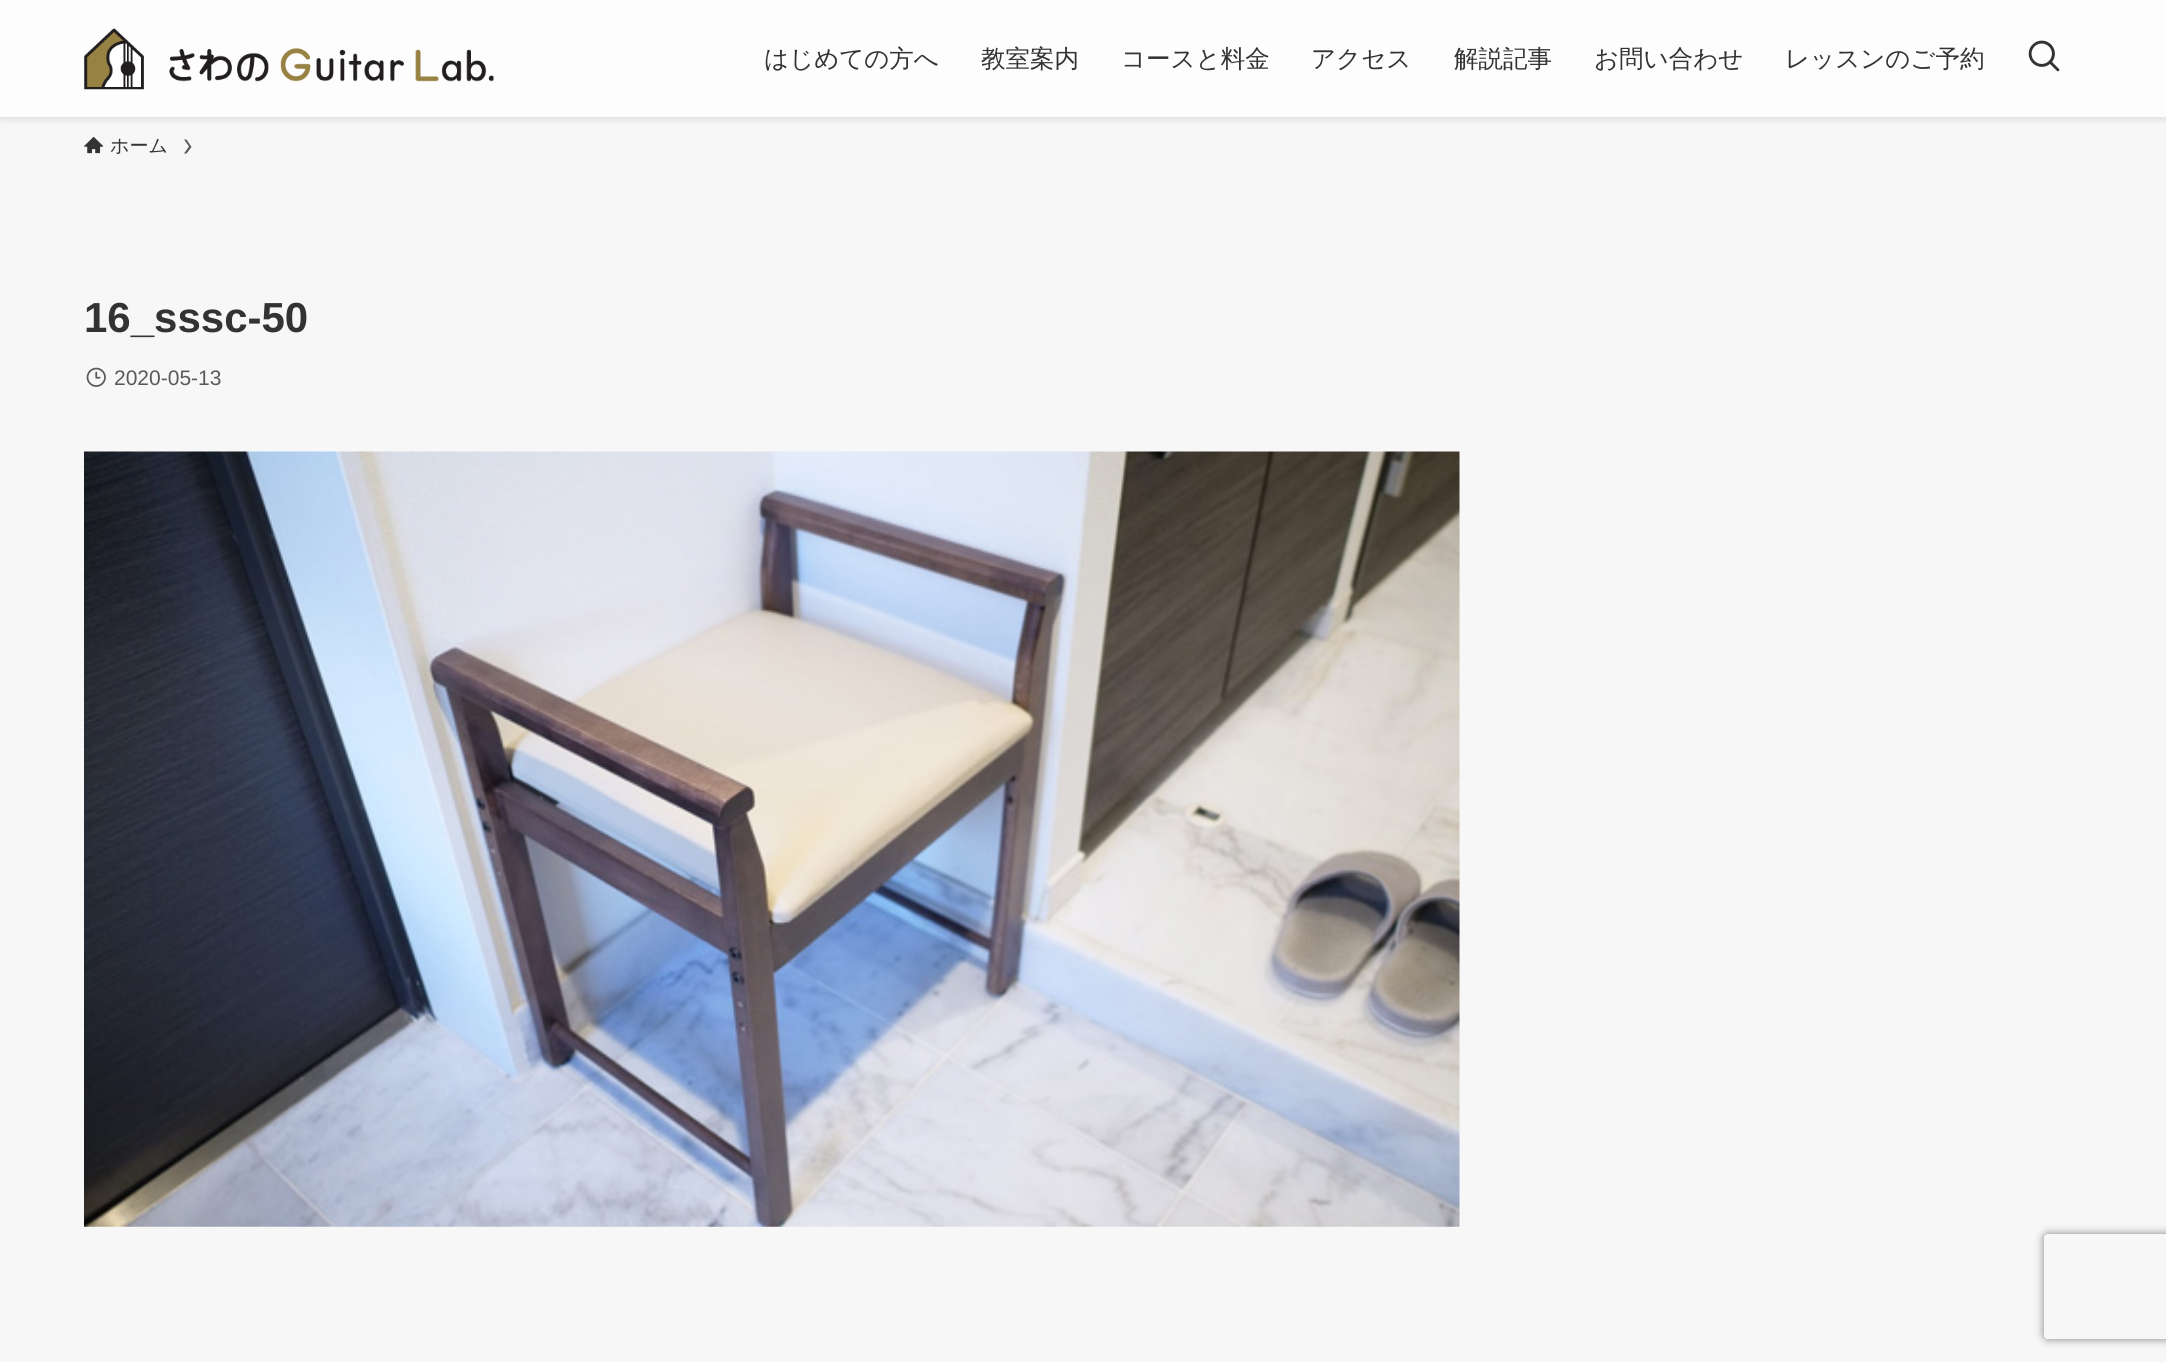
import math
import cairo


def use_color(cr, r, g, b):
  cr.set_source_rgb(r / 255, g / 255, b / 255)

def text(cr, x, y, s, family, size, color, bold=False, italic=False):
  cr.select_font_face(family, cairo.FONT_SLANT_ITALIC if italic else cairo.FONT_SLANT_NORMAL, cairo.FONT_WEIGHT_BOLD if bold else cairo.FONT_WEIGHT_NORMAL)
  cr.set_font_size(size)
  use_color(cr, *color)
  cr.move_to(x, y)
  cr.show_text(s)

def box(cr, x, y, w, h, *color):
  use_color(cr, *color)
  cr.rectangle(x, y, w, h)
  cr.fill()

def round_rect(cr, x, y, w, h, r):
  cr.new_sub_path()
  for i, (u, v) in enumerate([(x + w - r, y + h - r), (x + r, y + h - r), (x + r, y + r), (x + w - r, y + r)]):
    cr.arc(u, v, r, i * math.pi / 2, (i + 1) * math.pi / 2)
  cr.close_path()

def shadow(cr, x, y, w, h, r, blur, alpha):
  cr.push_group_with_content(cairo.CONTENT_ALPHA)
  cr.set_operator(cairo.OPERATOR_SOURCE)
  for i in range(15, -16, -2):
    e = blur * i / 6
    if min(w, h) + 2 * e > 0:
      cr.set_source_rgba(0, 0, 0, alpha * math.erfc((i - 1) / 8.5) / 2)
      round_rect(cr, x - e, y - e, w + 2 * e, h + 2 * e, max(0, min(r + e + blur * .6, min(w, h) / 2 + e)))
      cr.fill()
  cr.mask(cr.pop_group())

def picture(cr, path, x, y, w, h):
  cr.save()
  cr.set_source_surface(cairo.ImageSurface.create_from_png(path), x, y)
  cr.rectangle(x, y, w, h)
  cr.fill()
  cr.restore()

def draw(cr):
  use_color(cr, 247, 247, 247)
  cr.paint()
  use_color(cr, 0, 0, 0)
  shadow(cr, 0, 2, 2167, 117, 0, 3.5, 0.12)
  box(cr, 0, 0, 2166, 117, 253, 253, 253)
  picture(cr, "img_01.png", 84, 28, 410, 62)
  picture(cr, "img_02.png", 2028, 40, 32, 32)
  picture(cr, "img_03.png", 84, 136, 20, 18)
  use_color(cr, 90, 90, 90)
  cr.new_path()
  cr.move_to(186.5, 139.5)
  cr.line_to(184, 139.5)
  cr.line_to(189, 146.5)
  cr.line_to(184, 153.5)
  cr.line_to(186.5, 153.5)
  cr.line_to(191.5, 147)
  cr.close_path()
  cr.fill()
  picture(cr, "img_04.png", 86, 367, 20, 20)
  picture(cr, "img_05.png", 84, 451, 1376, 776)
  cr.save()
  cr.set_fill_rule(cairo.FILL_RULE_EVEN_ODD)
  cr.new_path()
  cr.move_to(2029, 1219)
  cr.line_to(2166, 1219)
  cr.line_to(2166, 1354)
  cr.line_to(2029, 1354)
  cr.close_path()
  cr.move_to(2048, 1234)
  cr.line_to(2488, 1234)
  cr.curve_to(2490, 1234, 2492, 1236, 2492, 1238)
  cr.line_to(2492, 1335)
  cr.curve_to(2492, 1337, 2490, 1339, 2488, 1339)
  cr.line_to(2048, 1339)
  cr.curve_to(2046, 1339, 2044, 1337, 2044, 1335)
  cr.line_to(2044, 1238)
  cr.curve_to(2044, 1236, 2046, 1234, 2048, 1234)
  cr.close_path()
  cr.clip()
  use_color(cr, 128, 128, 128)
  shadow(cr, 2044, 1234, 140, 105, 4, 4.5, 1)
  cr.restore()
  text(cr, 764, 67, "はじめての方へ", "WenQuanYi Zen Hei Medium", 24.5, (51, 51, 51))
  text(cr, 981, 67, "教室案内", "WenQuanYi Zen Hei Medium", 24.5, (51, 51, 51))
  text(cr, 1121, 67, "コースと料金", "WenQuanYi Zen Hei Medium", 24.5, (51, 51, 51))
  text(cr, 1311, 67, "アクセス", "WenQuanYi Zen Hei Medium", 24.5, (51, 51, 51))
  text(cr, 1454, 67, "解説記事", "WenQuanYi Zen Hei Medium", 24.5, (51, 51, 51))
  text(cr, 1594, 67, "お問い合わせ", "WenQuanYi Zen Hei Medium", 24.5, (51, 51, 51))
  text(cr, 1785, 67, "レッスンのご予約", "WenQuanYi Zen Hei Medium", 24.5, (51, 51, 51))
  text(cr, 110, 152, "ホーム", "WenQuanYi Zen Hei Medium", 19, (51, 51, 51))
  text(cr, 84, 332, "16_sssc-50", "Liberation Sans", 42, (51, 51, 51), bold=True)
  text(cr, 114, 385, "2020-05-13", "Liberation Sans", 21, (90, 90, 90))


surface = cairo.ImageSurface(cairo.FORMAT_RGB24, 2166, 1362)
cr = cairo.Context(surface)
options = cairo.FontOptions()
options.set_hint_metrics(cairo.HINT_METRICS_OFF)
options.set_hint_style(cairo.HINT_STYLE_NONE)
cr.set_font_options(options)
cr.set_miter_limit(4)
draw(cr)
surface.write_to_png("out.png")
